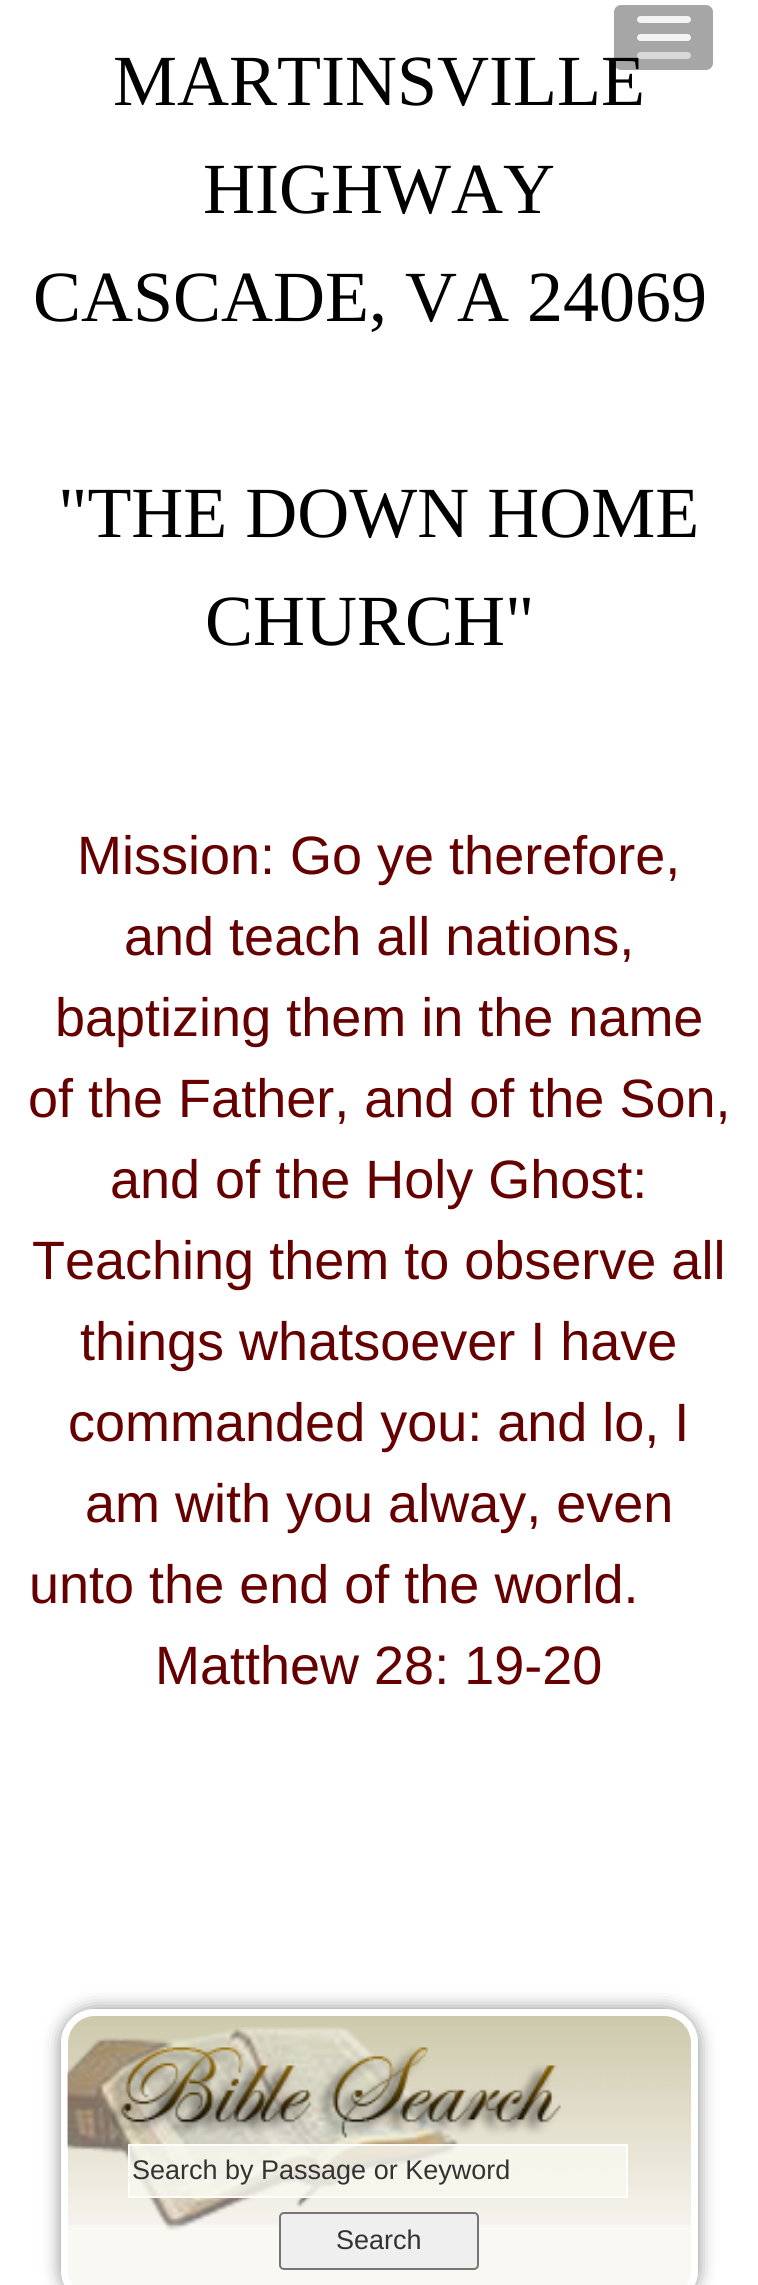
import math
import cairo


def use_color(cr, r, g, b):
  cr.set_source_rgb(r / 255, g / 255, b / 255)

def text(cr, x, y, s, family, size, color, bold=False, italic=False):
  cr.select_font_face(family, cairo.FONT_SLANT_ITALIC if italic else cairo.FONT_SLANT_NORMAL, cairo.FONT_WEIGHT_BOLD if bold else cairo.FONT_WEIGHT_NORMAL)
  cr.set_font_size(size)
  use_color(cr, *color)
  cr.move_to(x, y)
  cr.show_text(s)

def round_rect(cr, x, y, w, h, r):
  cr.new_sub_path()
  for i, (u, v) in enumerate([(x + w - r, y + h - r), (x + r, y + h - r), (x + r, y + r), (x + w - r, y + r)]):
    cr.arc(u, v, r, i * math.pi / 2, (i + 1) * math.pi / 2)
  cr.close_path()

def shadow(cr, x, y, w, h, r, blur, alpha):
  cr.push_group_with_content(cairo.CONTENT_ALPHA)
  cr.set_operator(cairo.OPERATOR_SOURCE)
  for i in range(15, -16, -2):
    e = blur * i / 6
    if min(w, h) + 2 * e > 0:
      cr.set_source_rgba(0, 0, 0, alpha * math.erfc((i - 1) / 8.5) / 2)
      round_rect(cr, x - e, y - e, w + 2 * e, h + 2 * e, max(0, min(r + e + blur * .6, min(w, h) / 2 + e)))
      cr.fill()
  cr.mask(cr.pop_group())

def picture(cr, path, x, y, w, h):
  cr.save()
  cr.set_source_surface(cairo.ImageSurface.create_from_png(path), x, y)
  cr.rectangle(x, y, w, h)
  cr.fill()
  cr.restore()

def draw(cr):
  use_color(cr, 255, 255, 255)
  cr.paint()
  use_color(cr, 136, 136, 136)
  shadow(cr, 61, 2009, 637, 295, 34, 9, 1)
  use_color(cr, 249, 248, 243)
  round_rect(cr, 61, 2009, 637, 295, 34)
  cr.fill()
  picture(cr, "img_01.png", 61, 2016, 637, 209)
  round_rect(cr, 64.5, 2012.5, 630, 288, 30.5)
  use_color(cr, 255, 255, 255)
  cr.set_line_width(7)
  cr.stroke()
  picture(cr, "img_02.png", 67, 2027, 494, 204)
  cr.set_source_rgba(0.976, 0.973, 0.941, 0.8)
  cr.rectangle(128, 2144, 500, 54)
  cr.fill()
  cr.rectangle(129, 2145, 498, 52)
  cr.set_source_rgba(1, 1, 1, 0.8)
  cr.set_line_width(2)
  cr.stroke()
  use_color(cr, 239, 239, 239)
  round_rect(cr, 280, 2213, 198, 56, 4)
  cr.fill_preserve()
  use_color(cr, 118, 118, 118)
  cr.stroke()
  text(cr, 113, 105, "MARTINSVILLE", "Liberation Serif", 72, (0, 0, 0))
  cr.set_source_rgba(0, 0, 0, 0.35)
  round_rect(cr, 614, 5, 99, 65, 7)
  cr.fill()
  cr.set_source_rgba(0.933, 0.933, 0.933, 0.7)
  round_rect(cr, 637, 52, 54, 7, 3.5)
  cr.fill()
  use_color(cr, 243, 243, 243)
  round_rect(cr, 637, 34, 54, 7, 3.5)
  cr.fill()
  round_rect(cr, 637, 16, 54, 7, 3.5)
  cr.fill()
  text(cr, 203, 213, "HIGHWAY", "Liberation Serif", 72, (0, 0, 0))
  text(cr, 33, 321, "CASCADE, VA 24069", "Liberation Serif", 72, (0, 0, 0))
  text(cr, 58, 537, "\"THE DOWN HOME", "Liberation Serif", 72, (0, 0, 0))
  text(cr, 205, 645, "CHURCH\"", "Liberation Serif", 72, (0, 0, 0))
  text(cr, 77, 874, "Mission: Go ye therefore,", "Liberation Sans", 54, (102, 0, 0))
  text(cr, 124, 955, "and teach all nations,", "Liberation Sans", 54, (102, 0, 0))
  text(cr, 55, 1036, "baptizing them in the name", "Liberation Sans", 54, (102, 0, 0))
  text(cr, 28, 1117, "of the Father, and of the Son,", "Liberation Sans", 54, (102, 0, 0))
  text(cr, 110, 1198, "and of the Holy Ghost:", "Liberation Sans", 54, (102, 0, 0))
  text(cr, 32, 1279, "Teaching them to observe all", "Liberation Sans", 54, (102, 0, 0))
  text(cr, 80, 1360, "things whatsoever I have", "Liberation Sans", 54, (102, 0, 0))
  text(cr, 68, 1441, "commanded you: and lo, I", "Liberation Sans", 54, (102, 0, 0))
  text(cr, 85, 1522, "am with you alway, even", "Liberation Sans", 54, (102, 0, 0))
  text(cr, 29, 1603, "unto the end of the world.", "Liberation Sans", 54, (102, 0, 0))
  text(cr, 155, 1684, "Matthew 28: 19-20", "Liberation Sans", 54, (102, 0, 0))
  text(cr, 132, 2179, "Search by Passage or Keyword", "Liberation Sans", 27, (51, 51, 51))
  text(cr, 336, 2249, "Search", "Liberation Sans", 27, (51, 51, 51))


surface = cairo.ImageSurface(cairo.FORMAT_RGB24, 758, 2285)
cr = cairo.Context(surface)
options = cairo.FontOptions()
options.set_hint_metrics(cairo.HINT_METRICS_OFF)
options.set_hint_style(cairo.HINT_STYLE_NONE)
cr.set_font_options(options)
cr.set_miter_limit(4)
draw(cr)
surface.write_to_png("out.png")
